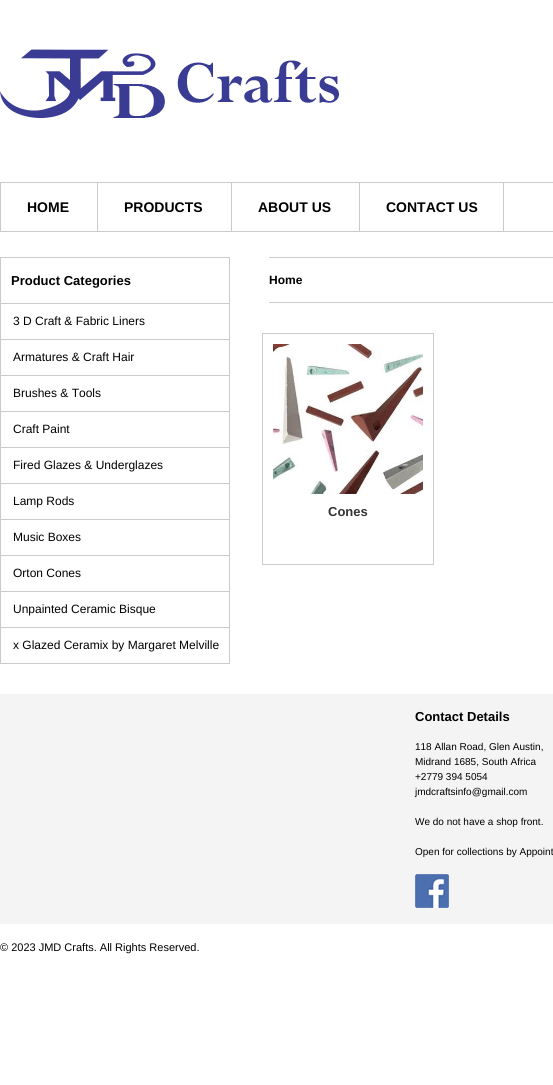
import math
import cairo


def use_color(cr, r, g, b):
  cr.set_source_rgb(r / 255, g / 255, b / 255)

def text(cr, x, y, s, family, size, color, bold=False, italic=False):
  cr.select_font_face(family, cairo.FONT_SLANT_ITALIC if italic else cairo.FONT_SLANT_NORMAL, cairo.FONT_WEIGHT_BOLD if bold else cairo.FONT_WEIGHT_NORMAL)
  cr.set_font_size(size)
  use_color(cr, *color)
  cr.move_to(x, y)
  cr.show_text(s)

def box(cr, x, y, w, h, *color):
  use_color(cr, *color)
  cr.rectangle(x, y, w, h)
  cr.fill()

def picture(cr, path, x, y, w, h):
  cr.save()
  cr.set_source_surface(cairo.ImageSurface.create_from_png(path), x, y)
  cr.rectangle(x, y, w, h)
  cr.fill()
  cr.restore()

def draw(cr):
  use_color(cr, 255, 255, 255)
  cr.paint()
  picture(cr, "img_01.png", 0, 49, 344, 70)
  box(cr, 0, 182, 553, 1, 203, 203, 203)
  box(cr, 0, 231, 553, 1, 203, 203, 203)
  box(cr, 0, 183, 1, 48, 203, 203, 203)
  box(cr, 97, 183, 1, 48, 203, 203, 203)
  box(cr, 231, 183, 1, 48, 203, 203, 203)
  box(cr, 359, 183, 1, 48, 203, 203, 203)
  box(cr, 503, 183, 1, 48, 203, 203, 203)
  box(cr, 0, 257, 230, 1, 203, 203, 203)
  box(cr, 229, 257, 1, 407, 203, 203, 203)
  box(cr, 0, 257, 1, 407, 203, 203, 203)
  box(cr, 1, 303, 228, 1, 203, 203, 203)
  box(cr, 1, 339, 228, 1, 203, 203, 203)
  box(cr, 1, 375, 228, 1, 203, 203, 203)
  box(cr, 1, 411, 228, 1, 203, 203, 203)
  box(cr, 1, 447, 228, 1, 203, 203, 203)
  box(cr, 1, 483, 228, 1, 203, 203, 203)
  box(cr, 1, 519, 228, 1, 203, 203, 203)
  box(cr, 1, 555, 228, 1, 203, 203, 203)
  box(cr, 1, 591, 228, 1, 203, 203, 203)
  box(cr, 1, 627, 228, 1, 203, 203, 203)
  box(cr, 1, 663, 228, 1, 203, 203, 203)
  box(cr, 269, 257, 284, 1, 203, 203, 203)
  box(cr, 269, 302, 284, 1, 203, 203, 203)
  cr.rectangle(262.5, 333.5, 171, 231)
  cr.set_line_width(1)
  cr.stroke()
  picture(cr, "img_02.png", 273, 344, 150, 150)
  box(cr, 0, 694, 553, 230, 244, 244, 244)
  picture(cr, "img_03.png", 415, 874, 34, 34)
  text(cr, 27, 212, "HOME", "Liberation Sans", 14, (0, 0, 0), bold=True)
  text(cr, 124, 212, "PRODUCTS", "Liberation Sans", 14, (0, 0, 0), bold=True)
  text(cr, 258, 212, "ABOUT US", "Liberation Sans", 14, (0, 0, 0), bold=True)
  text(cr, 386, 212, "CONTACT US", "Liberation Sans", 14, (0, 0, 0), bold=True)
  text(cr, 11, 285, "Product Categories", "Liberation Sans", 13, (0, 0, 0), bold=True)
  text(cr, 13, 325, "3 D Craft & Fabric Liners", "Liberation Sans", 12, (0, 0, 0))
  text(cr, 13, 361, "Armatures & Craft Hair", "Liberation Sans", 12, (0, 0, 0))
  text(cr, 13, 397, "Brushes & Tools", "Liberation Sans", 12, (0, 0, 0))
  text(cr, 13, 433, "Craft Paint", "Liberation Sans", 12, (0, 0, 0))
  text(cr, 13, 469, "Fired Glazes & Underglazes", "Liberation Sans", 12, (0, 0, 0))
  text(cr, 13, 505, "Lamp Rods", "Liberation Sans", 12, (0, 0, 0))
  text(cr, 13, 541, "Music Boxes", "Liberation Sans", 12, (0, 0, 0))
  text(cr, 13, 577, "Orton Cones", "Liberation Sans", 12, (0, 0, 0))
  text(cr, 13, 613, "Unpainted Ceramic Bisque", "Liberation Sans", 12, (0, 0, 0))
  text(cr, 13, 649, "x Glazed Ceramix by Margaret Melville", "Liberation Sans", 12, (0, 0, 0))
  text(cr, 269, 284, "Home", "Liberation Sans", 12, (0, 0, 0), bold=True)
  text(cr, 328, 516, "Cones", "Liberation Sans", 13, (51, 51, 51), bold=True)
  text(cr, 415, 721, "Contact Details", "Liberation Sans", 13, (0, 0, 0), bold=True)
  text(cr, 415, 750, "118 Allan Road, Glen Austin,", "Liberation Sans", 10, (0, 0, 0))
  text(cr, 415, 765, "Midrand 1685, South Africa", "Liberation Sans", 10, (0, 0, 0))
  text(cr, 415, 780, "+2779 394 5054", "Liberation Sans", 10, (0, 0, 0))
  text(cr, 415, 795, "jmdcraftsinfo@gmail.com", "Liberation Sans", 10, (0, 0, 0))
  text(cr, 415, 825, "We do not have a shop front.", "Liberation Sans", 10, (0, 0, 0))
  text(cr, 415, 855, "Open for collections by Appoint", "Liberation Sans", 10, (0, 0, 0))
  text(cr, 0, 951, "© 2023 JMD Crafts. All Rights Reserved.", "Liberation Sans", 11, (0, 0, 0))


surface = cairo.ImageSurface(cairo.FORMAT_RGB24, 553, 1085)
cr = cairo.Context(surface)
options = cairo.FontOptions()
options.set_hint_metrics(cairo.HINT_METRICS_OFF)
options.set_hint_style(cairo.HINT_STYLE_NONE)
cr.set_font_options(options)
cr.set_miter_limit(4)
draw(cr)
surface.write_to_png("out.png")
